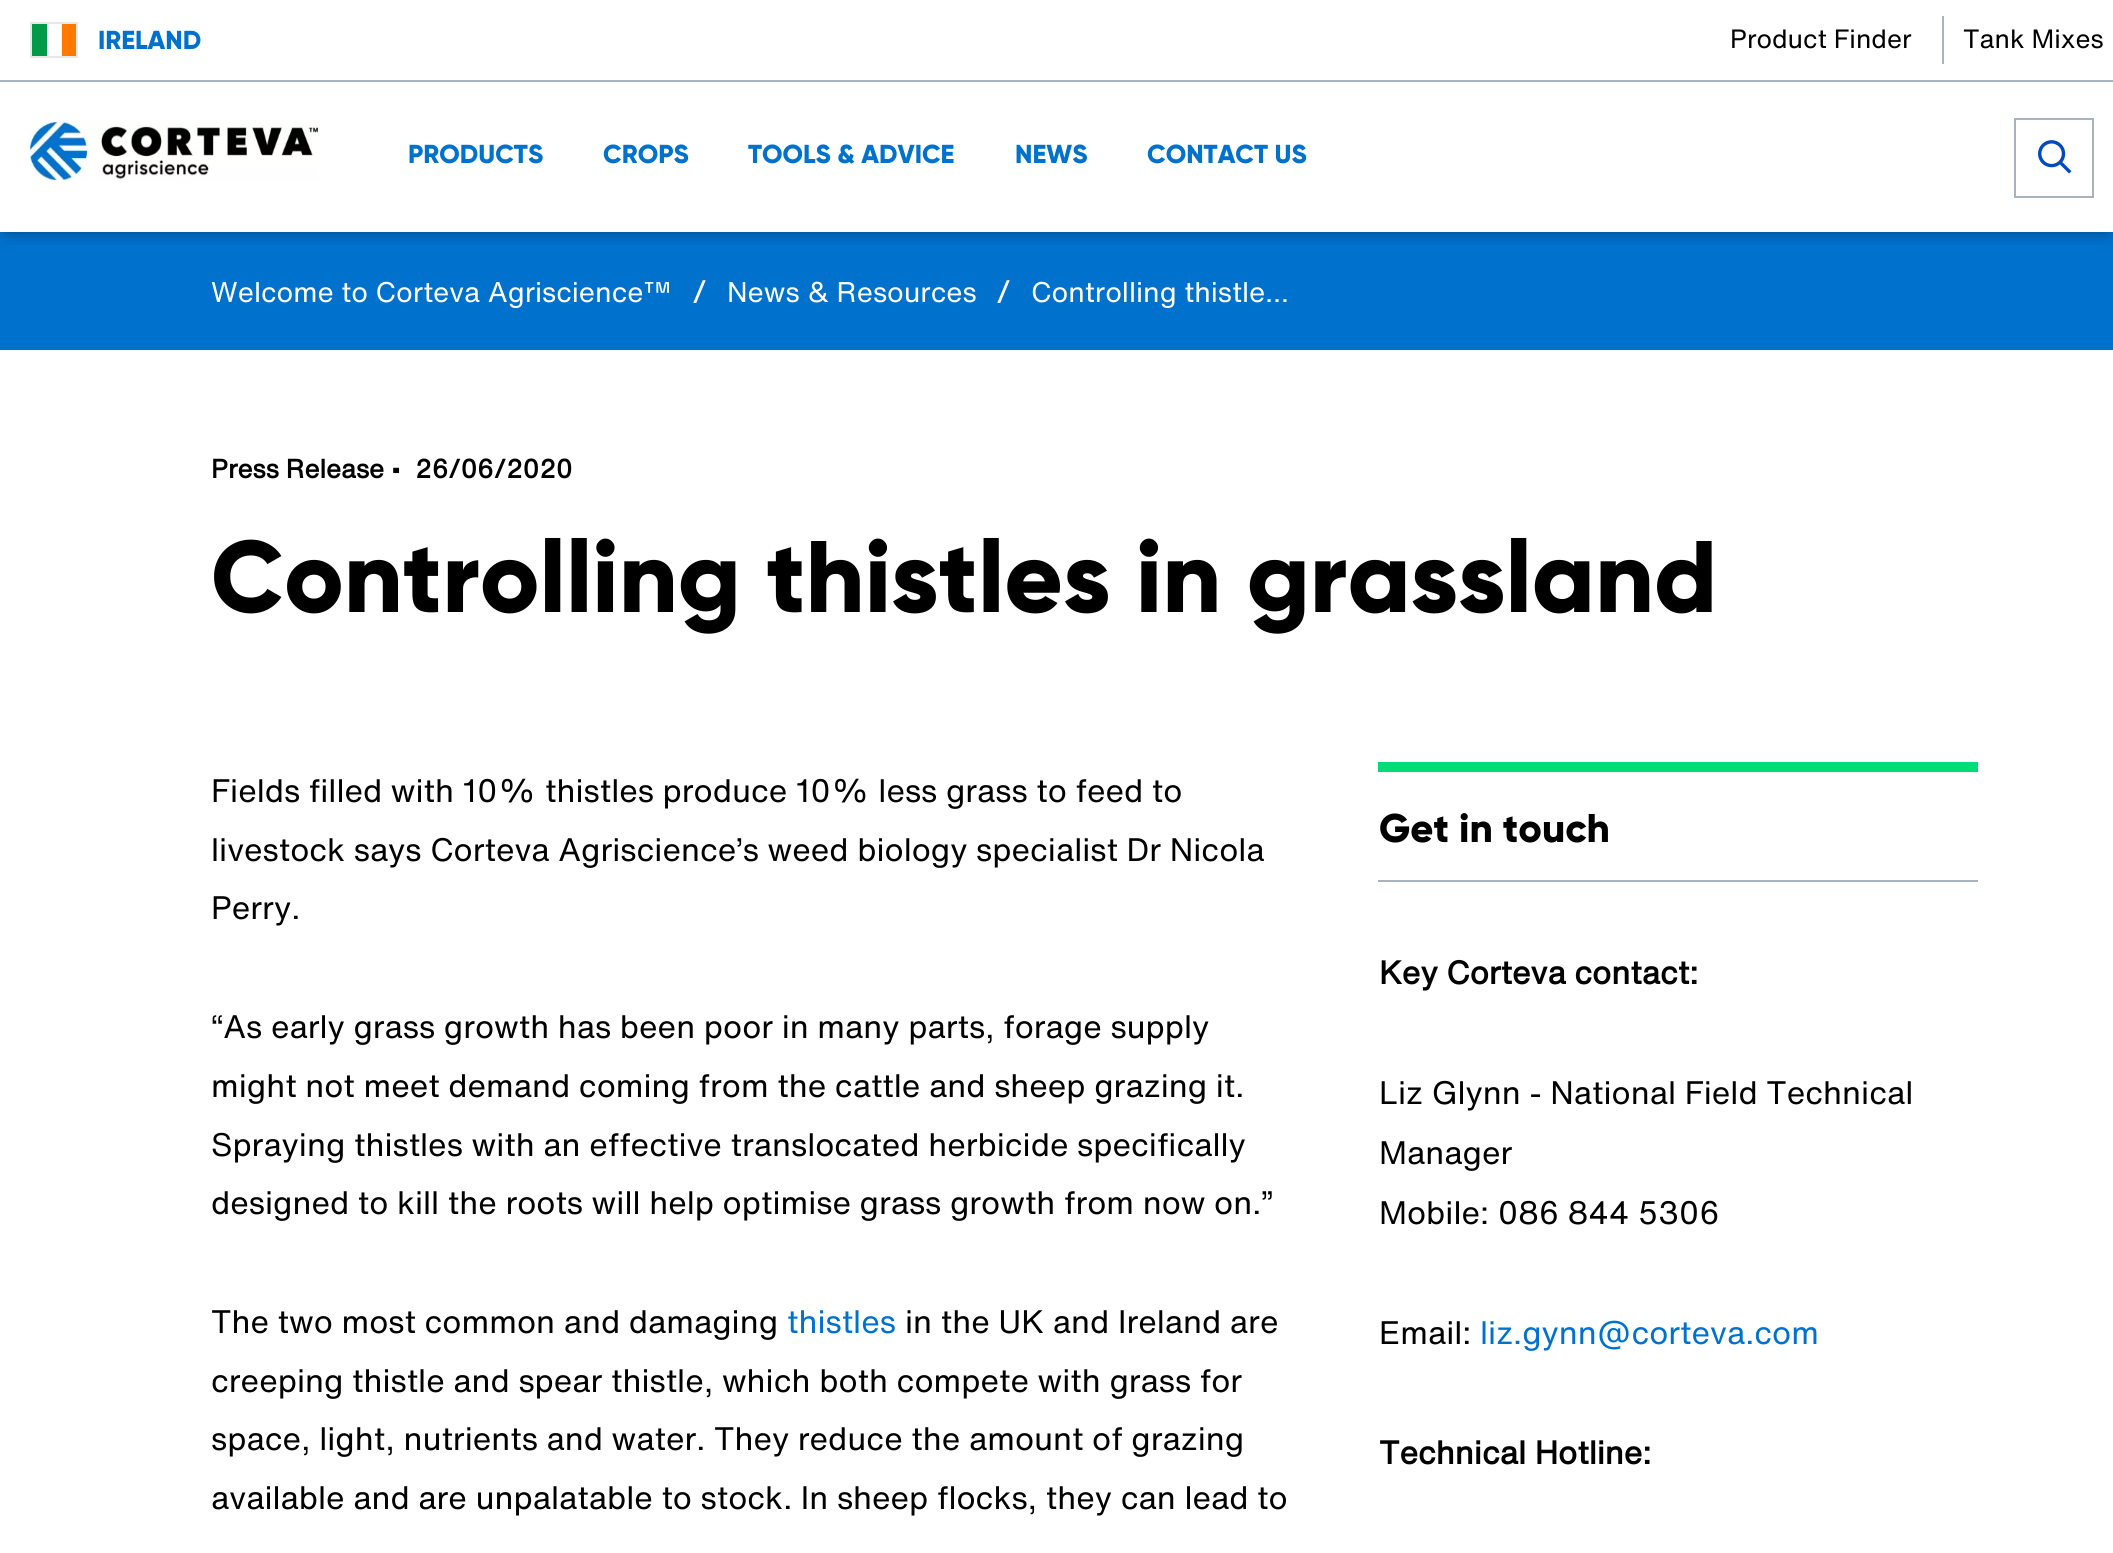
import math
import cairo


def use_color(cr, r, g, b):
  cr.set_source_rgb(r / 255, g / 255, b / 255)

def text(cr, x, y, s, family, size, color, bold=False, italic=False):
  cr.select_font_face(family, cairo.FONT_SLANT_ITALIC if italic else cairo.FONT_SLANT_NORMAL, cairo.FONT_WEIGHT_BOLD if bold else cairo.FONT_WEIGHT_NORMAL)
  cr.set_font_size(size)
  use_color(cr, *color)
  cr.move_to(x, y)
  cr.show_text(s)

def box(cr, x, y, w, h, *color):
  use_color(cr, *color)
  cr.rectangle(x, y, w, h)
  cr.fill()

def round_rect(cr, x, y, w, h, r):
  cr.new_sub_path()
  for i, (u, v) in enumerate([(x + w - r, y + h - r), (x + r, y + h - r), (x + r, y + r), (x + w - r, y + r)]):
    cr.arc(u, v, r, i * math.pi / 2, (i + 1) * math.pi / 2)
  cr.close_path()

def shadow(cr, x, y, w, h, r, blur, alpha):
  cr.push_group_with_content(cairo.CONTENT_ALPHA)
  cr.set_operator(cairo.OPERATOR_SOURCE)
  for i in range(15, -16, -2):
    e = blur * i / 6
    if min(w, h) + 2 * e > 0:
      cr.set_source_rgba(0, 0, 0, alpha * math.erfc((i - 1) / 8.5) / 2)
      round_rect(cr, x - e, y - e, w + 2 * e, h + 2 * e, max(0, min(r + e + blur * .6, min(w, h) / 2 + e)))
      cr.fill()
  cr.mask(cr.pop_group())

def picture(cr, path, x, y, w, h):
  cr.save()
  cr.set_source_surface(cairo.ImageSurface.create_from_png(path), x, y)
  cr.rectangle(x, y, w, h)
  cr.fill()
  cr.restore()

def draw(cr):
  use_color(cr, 255, 255, 255)
  cr.paint()
  box(cr, 0, 232, 2113, 118, 0, 114, 206)
  cr.save()
  cr.rectangle(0, 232, 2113, 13)
  cr.clip()
  use_color(cr, 0, 0, 0)
  shadow(cr, 8, 10, 2098, 216, 0, 10, 0.75)
  cr.restore()
  box(cr, 32, 24, 15, 32, 0, 154, 73)
  box(cr, 62, 24, 14, 32, 255, 121, 0)
  cr.rectangle(31, 23, 46, 34)
  use_color(cr, 230, 232, 234)
  cr.stroke()
  box(cr, 1942, 16, 2, 48, 169, 179, 189)
  box(cr, 0, 80, 2113, 2, 169, 179, 189)
  picture(cr, "img_01.png", 30, 122, 288, 58)
  cr.rectangle(2015, 119, 78, 78)
  cr.stroke()
  picture(cr, "img_02.png", 2038, 140, 34, 34)
  box(cr, 1378, 762, 600, 10, 0, 220, 120)
  box(cr, 1378, 880, 600, 2, 169, 179, 189)
  text(cr, 98, 49, "IRELAND", "Gilroy ExtraBold", 26, (0, 114, 206))
  text(cr, 1730, 48, "Product Finder", "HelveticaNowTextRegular", 26, (0, 0, 0))
  text(cr, 1963, 48, "Tank Mixes", "HelveticaNowTextRegular", 26, (0, 0, 0))
  text(cr, 408, 163, "PRODUCTS", "Gilroy ExtraBold", 26, (0, 114, 206))
  text(cr, 603, 163, "CROPS", "Gilroy ExtraBold", 26, (0, 114, 206))
  text(cr, 748, 163, "TOOLS & ADVICE", "Gilroy ExtraBold", 26, (0, 114, 206))
  text(cr, 1015, 163, "NEWS", "Gilroy ExtraBold", 26, (0, 114, 206))
  text(cr, 1147, 163, "CONTACT US", "Gilroy ExtraBold", 26, (0, 114, 206))
  text(cr, 211, 302, "Welcome to Corteva Agriscience™", "HelveticaNowTextRegular", 28, (255, 255, 255))
  text(cr, 692, 303, "/", "HelveticaNowTextRegular", 32, (255, 255, 255))
  text(cr, 727, 302, "News & Resources", "HelveticaNowTextRegular", 28, (255, 255, 255))
  text(cr, 996, 303, "/", "HelveticaNowTextRegular", 32, (255, 255, 255))
  text(cr, 1031, 302, "Controlling thistle…", "HelveticaNowTextRegular", 28, (255, 255, 255))
  text(cr, 211, 478, "Press Release •", "HelveticaNowTextRegular", 26, (0, 0, 0), bold=True)
  text(cr, 415, 478, "26/06/2020", "HelveticaNowTextRegular", 26, (0, 0, 0), bold=True)
  text(cr, 211, 612, "Controlling thistles in grassland", "Gilroy ExtraBold", 101.4, (0, 0, 0))
  text(cr, 211, 802, "Fields filled with 10% thistles produce 10% less grass to feed to", "HelveticaNowTextRegular", 32, (0, 0, 0))
  text(cr, 211, 861, "livestock says Corteva Agriscience’s weed biology specialist Dr Nicola", "HelveticaNowTextRegular", 32, (0, 0, 0))
  text(cr, 211, 919, "Perry.", "HelveticaNowTextRegular", 32, (0, 0, 0))
  text(cr, 211, 1038, "“As early grass growth has been poor in many parts, forage supply", "HelveticaNowTextRegular", 32, (0, 0, 0))
  text(cr, 211, 1097, "might not meet demand coming from the cattle and sheep grazing it.", "HelveticaNowTextRegular", 32, (0, 0, 0))
  text(cr, 211, 1156, "Spraying thistles with an effective translocated herbicide specifically", "HelveticaNowTextRegular", 32, (0, 0, 0))
  text(cr, 211, 1214, "designed to kill the roots will help optimise grass growth from now on.”", "HelveticaNowTextRegular", 32, (0, 0, 0))
  text(cr, 211, 1333, "The two most common and damaging", "HelveticaNowTextRegular", 32, (0, 0, 0))
  text(cr, 787, 1333, "thistles", "HelveticaNowTextRegular", 32, (0, 114, 206))
  text(cr, 905, 1333, "in the UK and Ireland are", "HelveticaNowTextRegular", 32, (0, 0, 0))
  text(cr, 211, 1392, "creeping thistle and spear thistle, which both compete with grass for", "HelveticaNowTextRegular", 32, (0, 0, 0))
  text(cr, 211, 1450, "space, light, nutrients and water. They reduce the amount of grazing", "HelveticaNowTextRegular", 32, (0, 0, 0))
  text(cr, 211, 1509, "available and are unpalatable to stock. In sheep flocks, they can lead to", "HelveticaNowTextRegular", 32, (0, 0, 0))
  text(cr, 1379, 842, "Get in touch", "Gilroy ExtraBold", 40, (0, 0, 0))
  text(cr, 1379, 984, "Key Corteva contact:", "HelveticaNowTextRegular", 32, (0, 0, 0), bold=True)
  text(cr, 1379, 1104, "Liz Glynn - National Field Technical", "HelveticaNowTextRegular", 32, (0, 0, 0))
  text(cr, 1379, 1164, "Manager", "HelveticaNowTextRegular", 32, (0, 0, 0))
  text(cr, 1379, 1224, "Mobile: 086 844 5306", "HelveticaNowTextRegular", 32, (0, 0, 0))
  text(cr, 1379, 1344, "Email:", "HelveticaNowTextRegular", 32, (0, 0, 0))
  text(cr, 1480, 1344, "liz.gynn@corteva.com", "HelveticaNowTextRegular", 32, (0, 114, 206))
  text(cr, 1379, 1464, "Technical Hotline:", "HelveticaNowTextRegular", 32, (0, 0, 0), bold=True)


surface = cairo.ImageSurface(cairo.FORMAT_RGB24, 2113, 1553)
cr = cairo.Context(surface)
options = cairo.FontOptions()
options.set_hint_metrics(cairo.HINT_METRICS_OFF)
options.set_hint_style(cairo.HINT_STYLE_NONE)
cr.set_font_options(options)
cr.set_miter_limit(4)
draw(cr)
surface.write_to_png("out.png")
